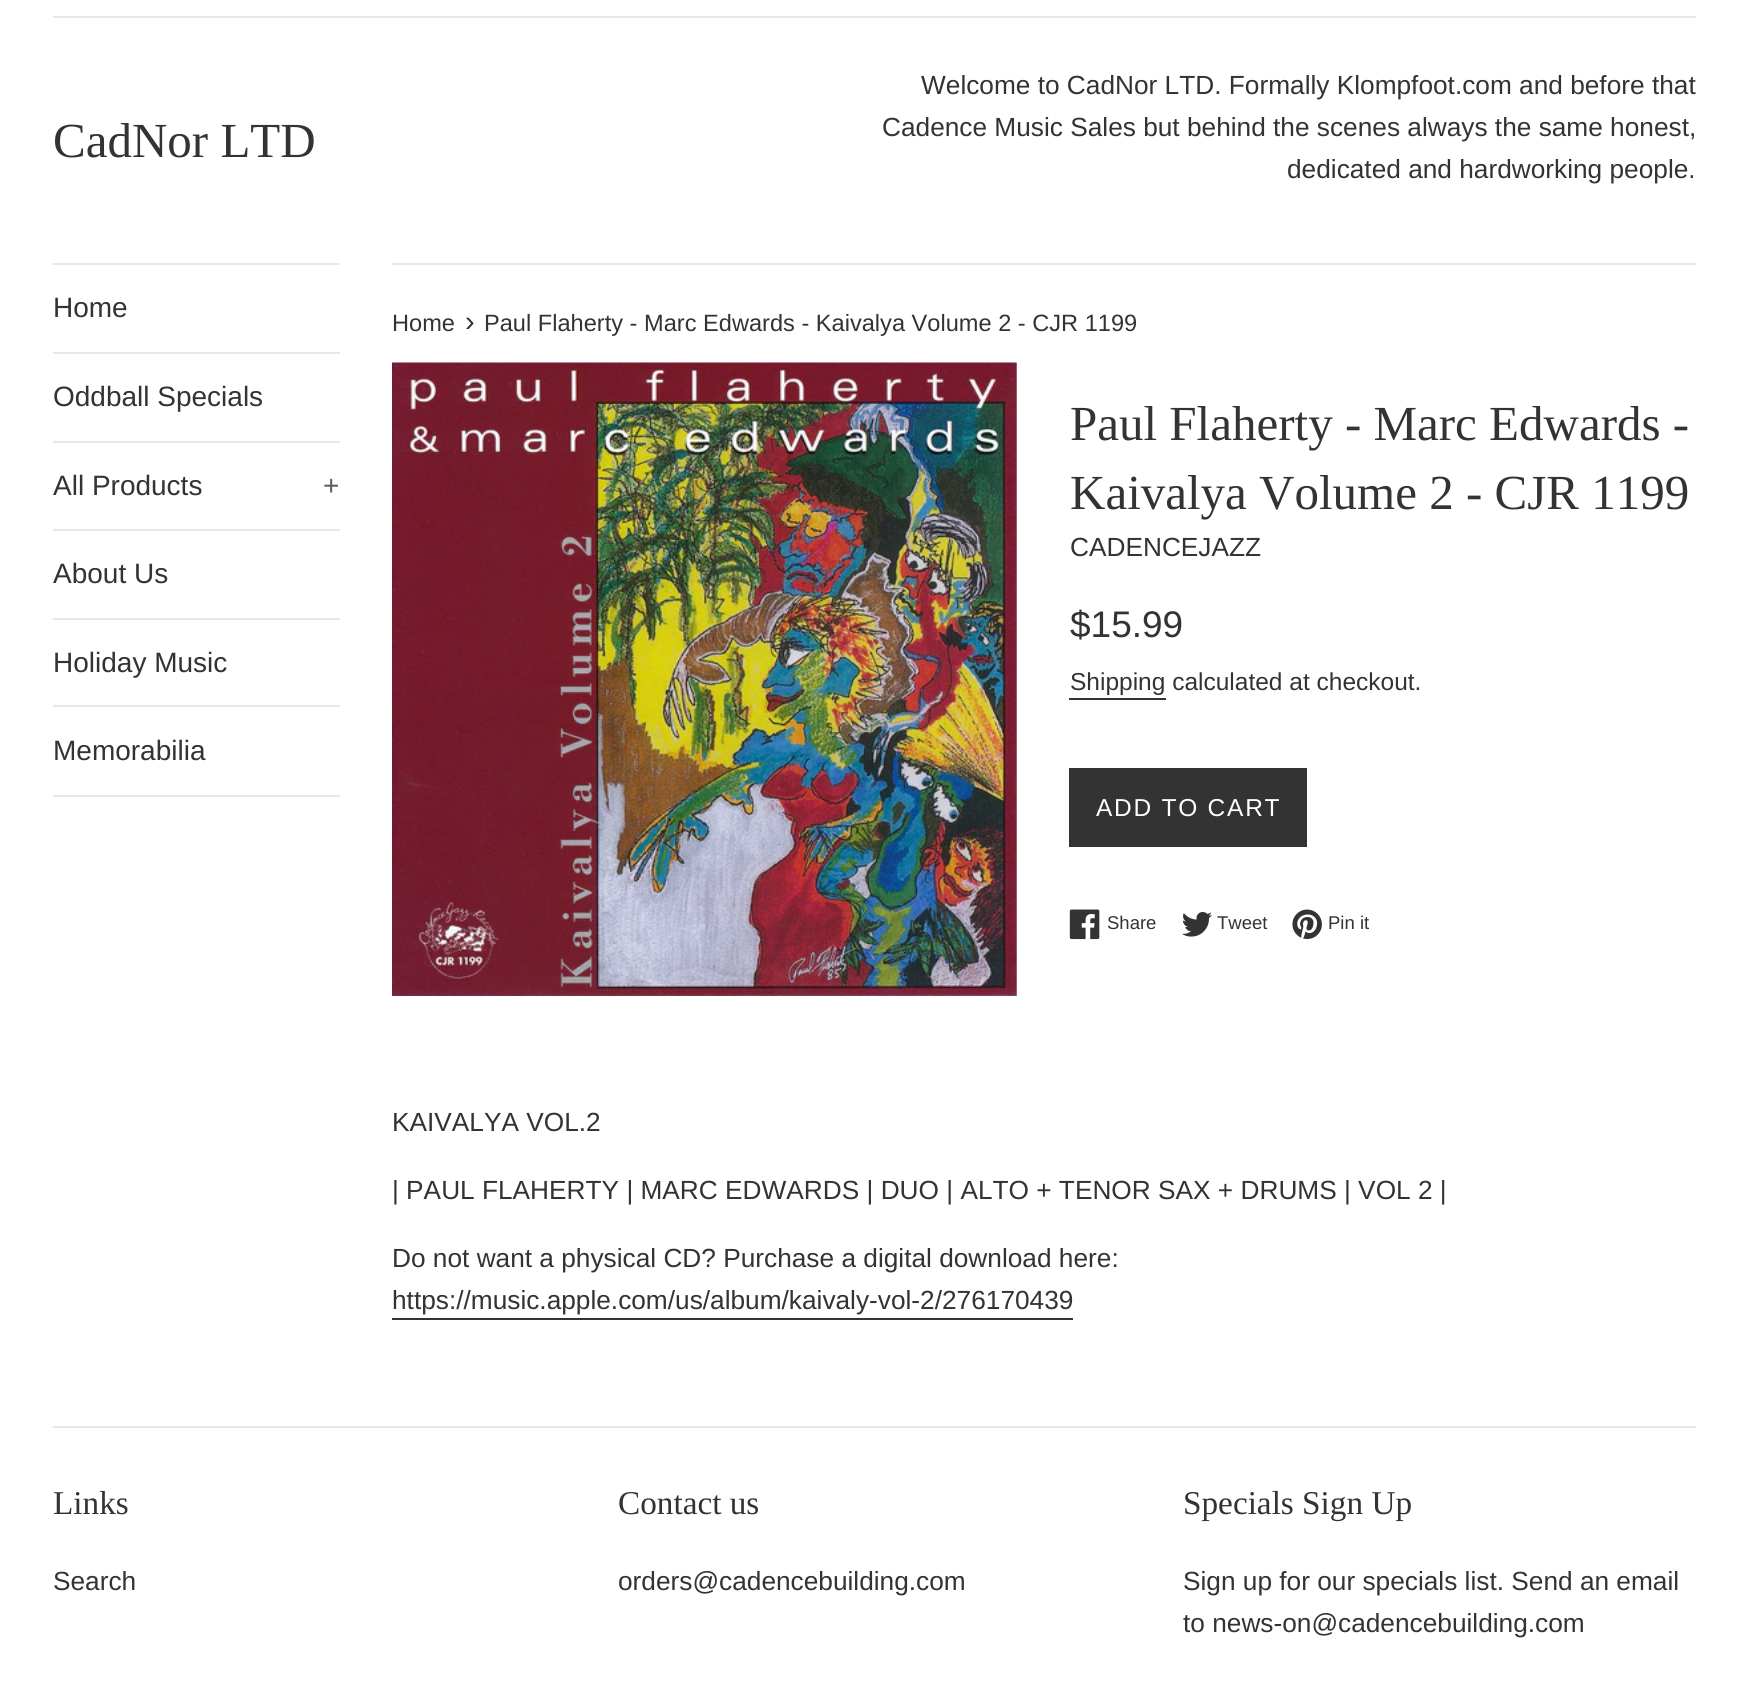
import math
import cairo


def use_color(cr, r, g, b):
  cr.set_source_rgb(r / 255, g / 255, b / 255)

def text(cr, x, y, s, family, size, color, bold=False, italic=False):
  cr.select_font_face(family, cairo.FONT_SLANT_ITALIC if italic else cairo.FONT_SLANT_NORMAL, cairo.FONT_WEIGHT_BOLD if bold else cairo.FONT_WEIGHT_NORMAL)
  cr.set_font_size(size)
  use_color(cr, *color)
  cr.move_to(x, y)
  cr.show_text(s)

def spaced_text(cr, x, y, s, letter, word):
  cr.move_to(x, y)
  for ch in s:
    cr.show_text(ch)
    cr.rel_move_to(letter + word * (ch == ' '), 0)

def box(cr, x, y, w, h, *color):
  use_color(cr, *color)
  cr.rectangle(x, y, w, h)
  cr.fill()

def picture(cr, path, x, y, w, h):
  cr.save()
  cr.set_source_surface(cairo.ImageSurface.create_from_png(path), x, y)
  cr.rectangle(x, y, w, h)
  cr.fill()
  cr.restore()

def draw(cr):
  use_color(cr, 255, 255, 255)
  cr.paint()
  box(cr, 53, 16, 1643, 2, 232, 232, 232)
  box(cr, 53, 263, 287, 2, 232, 232, 232)
  box(cr, 53, 352, 287, 2, 232, 232, 232)
  box(cr, 53, 441, 287, 2, 232, 232, 232)
  box(cr, 53, 529, 287, 2, 232, 232, 232)
  box(cr, 53, 618, 287, 2, 232, 232, 232)
  box(cr, 53, 705, 287, 2, 232, 232, 232)
  box(cr, 53, 795, 287, 2, 232, 232, 232)
  box(cr, 392, 263, 1304, 2, 232, 232, 232)
  picture(cr, "img_01.png", 392, 362, 625, 634)
  box(cr, 1069, 698, 97, 2, 51, 51, 51)
  box(cr, 1069, 768, 238, 79, 51, 51, 51)
  picture(cr, "img_02.png", 1069, 909, 31, 31)
  picture(cr, "img_03.png", 1182, 912, 30, 25)
  picture(cr, "img_04.png", 1292, 909, 30, 30)
  box(cr, 392, 1318, 681, 2, 51, 51, 51)
  box(cr, 53, 1426, 1643, 2, 232, 232, 232)
  text(cr, 53, 157, "CadNor LTD", "Liberation Serif", 49, (51, 51, 51))
  text(cr, 921, 94, "Welcome to CadNor LTD. Formally Klompfoot.com and before that", "Liberation Sans", 26.25, (51, 51, 51))
  text(cr, 882, 136, "Cadence Music Sales but behind the scenes always the same honest,", "Liberation Sans", 26.25, (51, 51, 51))
  text(cr, 1287, 178, "dedicated and hardworking people.", "Liberation Sans", 26.25, (51, 51, 51))
  text(cr, 53, 317, "Home", "Liberation Sans", 28, (51, 51, 51))
  text(cr, 53, 406, "Oddball Specials", "Liberation Sans", 28, (51, 51, 51))
  text(cr, 53, 495, "All Products", "Liberation Sans", 28, (51, 51, 51))
  text(cr, 323, 495, "+", "Liberation Sans", 28, (92, 92, 92))
  text(cr, 53, 583, "About Us", "Liberation Sans", 28, (51, 51, 51))
  text(cr, 53, 672, "Holiday Music", "Liberation Sans", 28, (51, 51, 51))
  text(cr, 53, 760, "Memorabilia", "Liberation Sans", 28, (51, 51, 51))
  text(cr, 392, 331, "Home", "Liberation Sans", 23.6, (51, 51, 51))
  text(cr, 465, 331, "›", "Liberation Sans", 29, (51, 51, 51))
  text(cr, 484, 331, "Paul Flaherty - Marc Edwards - Kaivalya Volume 2 - CJR 1199", "Liberation Sans", 23.6, (51, 51, 51))
  text(cr, 1070, 440, "Paul Flaherty - Marc Edwards -", "Liberation Serif", 49, (51, 51, 51))
  text(cr, 1070, 509, "Kaivalya Volume 2 - CJR 1199", "Liberation Serif", 49, (51, 51, 51))
  text(cr, 1070, 556, "CADENCEJAZZ", "Liberation Sans", 26.25, (51, 51, 51))
  text(cr, 1070, 637, "$15.99", "Liberation Sans", 37, (51, 51, 51))
  text(cr, 1070, 690, "Shipping calculated at checkout.", "Liberation Sans", 24.5, (51, 51, 51))
  use_color(cr, 255, 255, 255)
  spaced_text(cr, 1096, 816, "ADD TO CART", 1.75, 0)
  text(cr, 1107, 929, "Share", "Liberation Sans", 18.5, (51, 51, 51))
  text(cr, 1217, 929, "Tweet", "Liberation Sans", 18.5, (51, 51, 51))
  text(cr, 1328, 929, "Pin it", "Liberation Sans", 18.5, (51, 51, 51))
  text(cr, 392, 1131, "KAIVALYA VOL.2", "Liberation Sans", 26.25, (51, 51, 51))
  text(cr, 392, 1199, "| PAUL FLAHERTY | MARC EDWARDS | DUO | ALTO + TENOR SAX + DRUMS | VOL 2 |", "Liberation Sans", 26.25, (51, 51, 51))
  text(cr, 392, 1267, "Do not want a physical CD? Purchase a digital download here:", "Liberation Sans", 26.25, (51, 51, 51))
  text(cr, 392, 1309, "https://music.apple.com/us/album/kaivaly-vol-2/276170439", "Liberation Sans", 26.25, (51, 51, 51))
  text(cr, 53, 1514, "Links", "Liberation Serif", 33.25, (51, 51, 51))
  text(cr, 53, 1590, "Search", "Liberation Sans", 26.25, (51, 51, 51))
  text(cr, 618, 1514, "Contact us", "Liberation Serif", 33.25, (51, 51, 51))
  text(cr, 618, 1590, "orders@cadencebuilding.com", "Liberation Sans", 26.25, (51, 51, 51))
  text(cr, 1183, 1514, "Specials Sign Up", "Liberation Serif", 33.25, (51, 51, 51))
  text(cr, 1183, 1590, "Sign up for our specials list. Send an email", "Liberation Sans", 26.25, (51, 51, 51))
  text(cr, 1183, 1632, "to news-on@cadencebuilding.com", "Liberation Sans", 26.25, (51, 51, 51))


surface = cairo.ImageSurface(cairo.FORMAT_RGB24, 1748, 1706)
cr = cairo.Context(surface)
options = cairo.FontOptions()
options.set_hint_metrics(cairo.HINT_METRICS_OFF)
options.set_hint_style(cairo.HINT_STYLE_NONE)
cr.set_font_options(options)
cr.set_miter_limit(4)
draw(cr)
surface.write_to_png("out.png")
